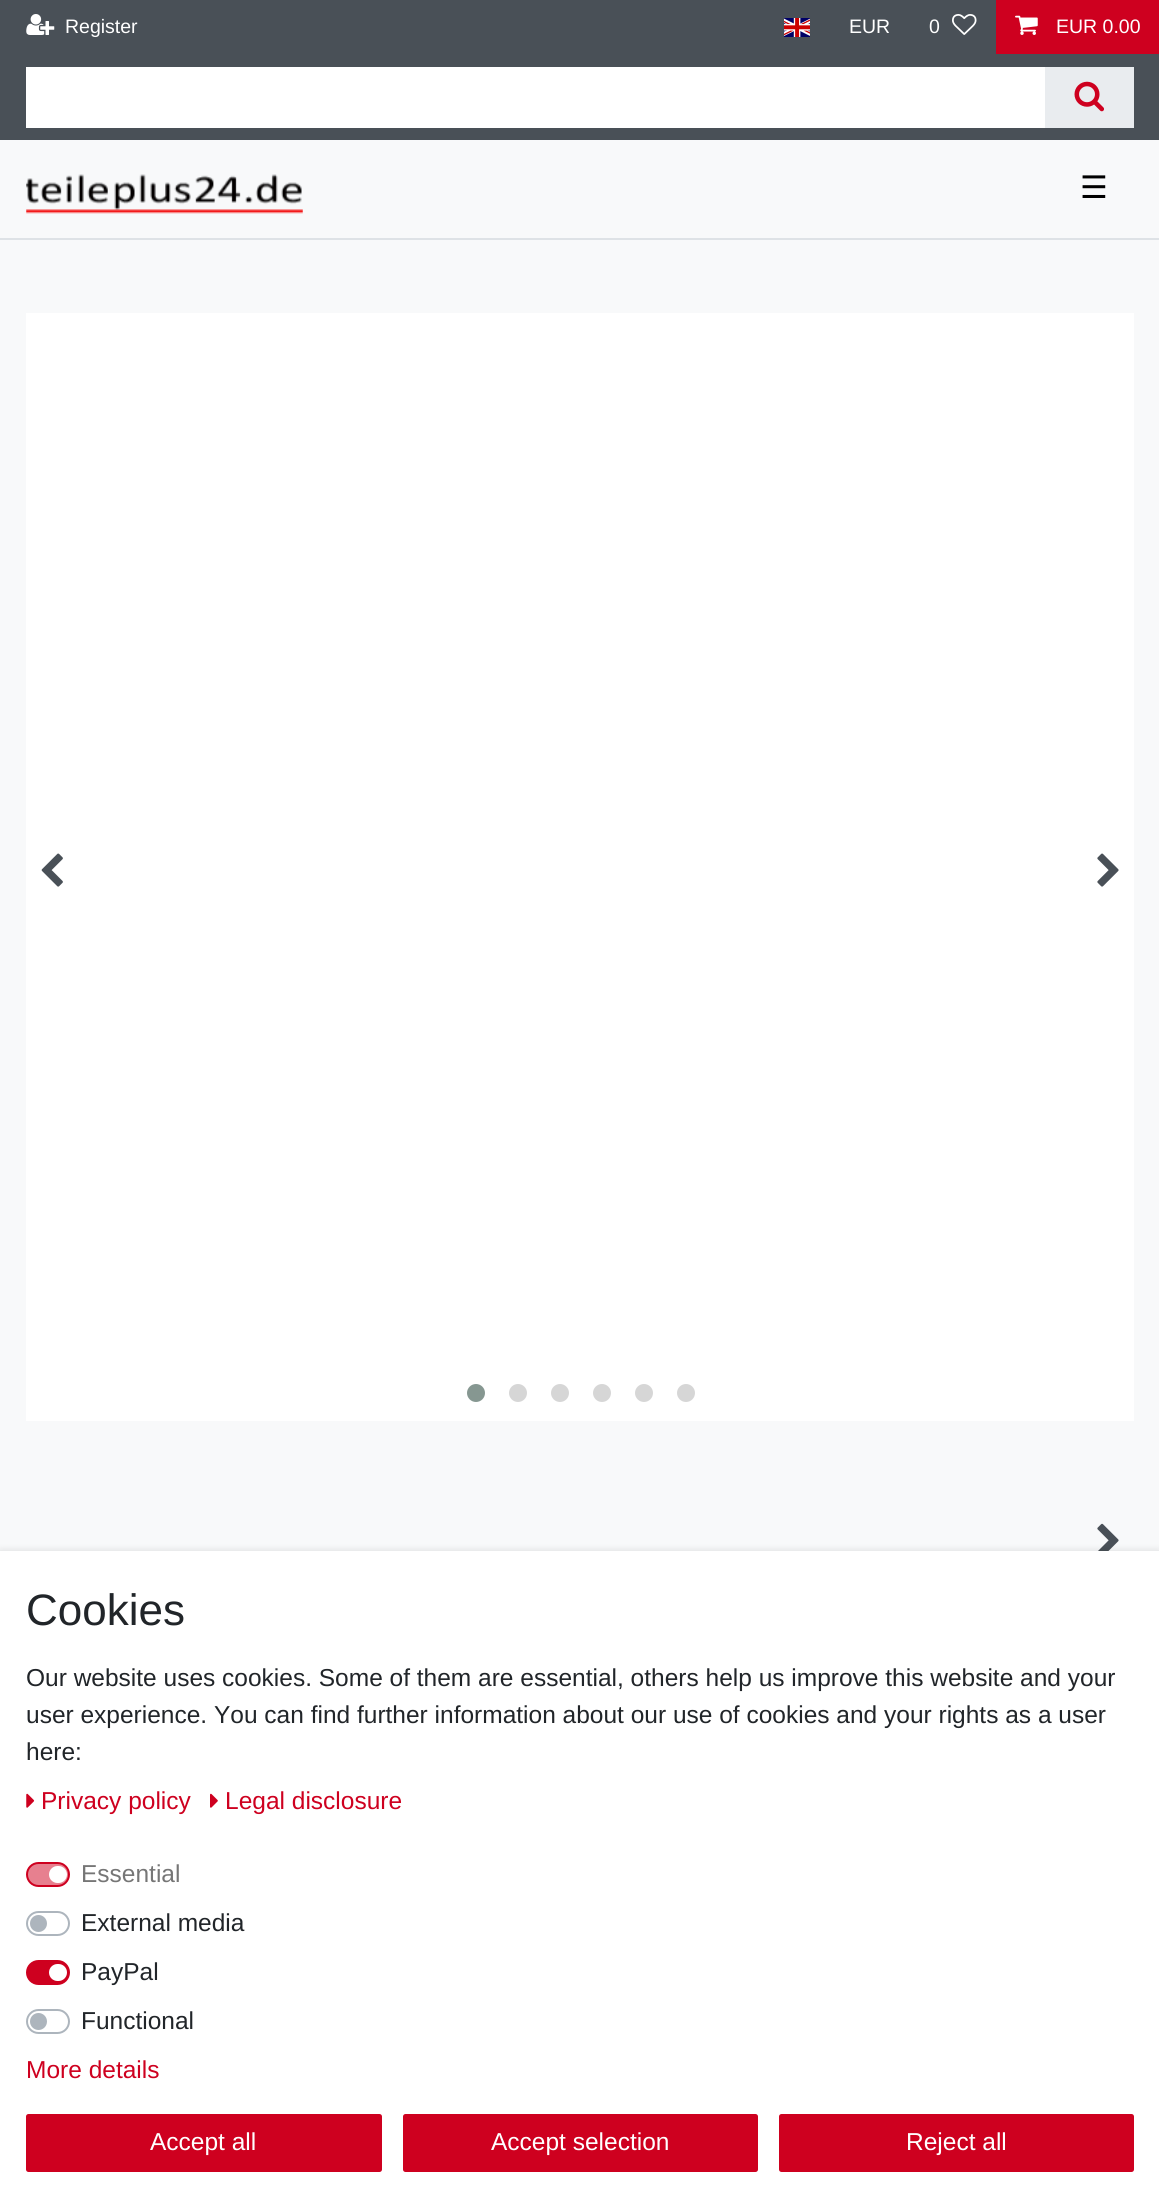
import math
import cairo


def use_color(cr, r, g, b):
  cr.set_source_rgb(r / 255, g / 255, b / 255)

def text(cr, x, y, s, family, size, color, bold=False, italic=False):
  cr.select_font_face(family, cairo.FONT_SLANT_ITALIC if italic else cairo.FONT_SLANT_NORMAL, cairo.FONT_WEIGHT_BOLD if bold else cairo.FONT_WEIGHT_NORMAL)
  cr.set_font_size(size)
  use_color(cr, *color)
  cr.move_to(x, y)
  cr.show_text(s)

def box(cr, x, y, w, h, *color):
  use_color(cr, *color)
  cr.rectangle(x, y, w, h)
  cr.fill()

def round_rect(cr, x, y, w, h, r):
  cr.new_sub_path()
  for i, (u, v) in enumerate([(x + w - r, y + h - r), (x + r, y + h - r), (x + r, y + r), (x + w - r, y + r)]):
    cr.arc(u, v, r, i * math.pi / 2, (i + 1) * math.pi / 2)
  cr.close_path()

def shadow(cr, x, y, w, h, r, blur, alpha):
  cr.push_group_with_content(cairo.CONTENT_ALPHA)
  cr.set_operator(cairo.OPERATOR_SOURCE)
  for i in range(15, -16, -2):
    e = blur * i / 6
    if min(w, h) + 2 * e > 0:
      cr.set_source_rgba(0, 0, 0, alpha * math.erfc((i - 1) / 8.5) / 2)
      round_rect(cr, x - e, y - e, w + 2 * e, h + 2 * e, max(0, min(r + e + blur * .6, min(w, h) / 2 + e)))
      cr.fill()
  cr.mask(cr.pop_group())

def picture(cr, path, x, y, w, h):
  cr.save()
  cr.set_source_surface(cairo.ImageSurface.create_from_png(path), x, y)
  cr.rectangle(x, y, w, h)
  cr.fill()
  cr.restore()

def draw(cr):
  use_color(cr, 248, 249, 250)
  cr.paint()
  box(cr, 0, 0, 1159, 140, 73, 80, 87)
  picture(cr, "img_01.png", 26, 14, 29, 21)
  picture(cr, "img_02.png", 784, 18, 26, 19)
  picture(cr, "img_03.png", 952, 14, 25, 21)
  box(cr, 996, 0, 163, 54, 206, 0, 31)
  picture(cr, "img_04.png", 1015, 15, 23, 20)
  box(cr, 26, 67, 1019, 61, 255, 255, 255)
  box(cr, 1045, 67, 89, 61, 233, 236, 239)
  picture(cr, "img_05.png", 1074, 81, 30, 31)
  box(cr, 0, 238, 1159, 2, 222, 226, 230)
  picture(cr, "img_06.png", 26, 174, 277, 40)
  box(cr, 26, 313, 1108, 1108, 255, 255, 255)
  picture(cr, "img_07.png", 41, 853, 22, 34)
  picture(cr, "img_08.png", 1097, 853, 22, 34)
  use_color(cr, 134, 151, 145)
  cr.arc(476, 1393, 9, 0, 2 * math.pi)
  cr.fill()
  use_color(cr, 214, 214, 214)
  cr.arc(518, 1393, 9, 0, 2 * math.pi)
  cr.fill()
  cr.arc(560, 1393, 9, 0, 2 * math.pi)
  cr.fill()
  cr.arc(602, 1393, 9, 0, 2 * math.pi)
  cr.fill()
  cr.arc(644, 1393, 9, 0, 2 * math.pi)
  cr.fill()
  cr.arc(686, 1393, 9, 0, 2 * math.pi)
  cr.fill()
  picture(cr, "img_09.png", 1097, 1523, 22, 28)
  use_color(cr, 0, 0, 0)
  shadow(cr, 0, 1552, 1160, 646, 0, 4.5, 0.15)
  box(cr, 0, 1551, 1159, 645, 255, 255, 255)
  picture(cr, "img_10.png", 26, 1793, 9, 15)
  picture(cr, "img_11.png", 210, 1793, 8, 15)
  use_color(cr, 231, 128, 143)
  round_rect(cr, 27, 1863, 42, 23, 11.5)
  cr.fill_preserve()
  use_color(cr, 206, 0, 31)
  cr.stroke()
  use_color(cr, 255, 255, 255)
  round_rect(cr, 49, 1866, 18, 17, 8.5)
  cr.fill()
  round_rect(cr, 27, 1912, 42, 23, 11.5)
  use_color(cr, 173, 181, 189)
  cr.stroke()
  cr.arc(38.5, 1923.5, 8.5, 0, 2 * math.pi)
  cr.fill()
  use_color(cr, 206, 0, 31)
  round_rect(cr, 27, 1961, 42, 23, 11.5)
  cr.fill_preserve()
  cr.stroke()
  use_color(cr, 255, 255, 255)
  round_rect(cr, 49, 1964, 18, 17, 8.5)
  cr.fill()
  round_rect(cr, 27, 2010, 42, 23, 11.5)
  use_color(cr, 173, 181, 189)
  cr.stroke()
  cr.arc(38.5, 2021.5, 8.5, 0, 2 * math.pi)
  cr.fill()
  use_color(cr, 206, 0, 31)
  round_rect(cr, 27, 2115, 354, 56, 1.5)
  cr.fill_preserve()
  cr.stroke()
  round_rect(cr, 404, 2115, 353, 56, 1.5)
  cr.fill_preserve()
  cr.stroke()
  round_rect(cr, 780, 2115, 353, 56, 1.5)
  cr.fill_preserve()
  cr.stroke()
  text(cr, 65, 33, "Register", "Liberation Sans", 19.5, (255, 255, 255))
  text(cr, 849, 33, "EUR", "Liberation Sans", 19.5, (255, 255, 255))
  text(cr, 929, 33, "0", "Liberation Sans", 19.5, (255, 255, 255))
  text(cr, 1056, 33, "EUR 0.00", "Liberation Sans", 19.5, (255, 255, 255))
  text(cr, 1080, 198, "☰", "DejaVu Sans", 31, (0, 0, 0))
  text(cr, 26, 1625, "Cookies", "Liberation Sans", 44, (33, 37, 41))
  text(cr, 26, 1686, "Our website uses cookies. Some of them are essential, others help us improve this website and your", "Liberation Sans", 24.5, (33, 37, 41))
  text(cr, 26, 1723, "user experience. You can find further information about our use of cookies and your rights as a user", "Liberation Sans", 24.5, (33, 37, 41))
  text(cr, 26, 1760, "here:", "Liberation Sans", 24.5, (33, 37, 41))
  text(cr, 41, 1809, "Privacy policy", "Liberation Sans", 24.5, (206, 0, 31))
  text(cr, 225, 1809, "Legal disclosure", "Liberation Sans", 24.5, (206, 0, 31))
  text(cr, 81, 1882, "Essential", "Liberation Sans", 24.5, (118, 118, 118))
  text(cr, 81, 1931, "External media", "Liberation Sans", 24.5, (33, 37, 41))
  text(cr, 81, 1980, "PayPal", "Liberation Sans", 24.5, (33, 37, 41))
  text(cr, 81, 2029, "Functional", "Liberation Sans", 24.5, (33, 37, 41))
  text(cr, 26, 2078, "More details", "Liberation Sans", 24.5, (206, 0, 31))
  text(cr, 150, 2150, "Accept all", "Liberation Sans", 24.5, (255, 255, 255))
  text(cr, 491, 2150, "Accept selection", "Liberation Sans", 24.5, (255, 255, 255))
  text(cr, 906, 2150, "Reject all", "Liberation Sans", 24.5, (255, 255, 255))


surface = cairo.ImageSurface(cairo.FORMAT_RGB24, 1159, 2196)
cr = cairo.Context(surface)
options = cairo.FontOptions()
options.set_hint_metrics(cairo.HINT_METRICS_OFF)
options.set_hint_style(cairo.HINT_STYLE_NONE)
cr.set_font_options(options)
cr.set_miter_limit(4)
draw(cr)
surface.write_to_png("out.png")
